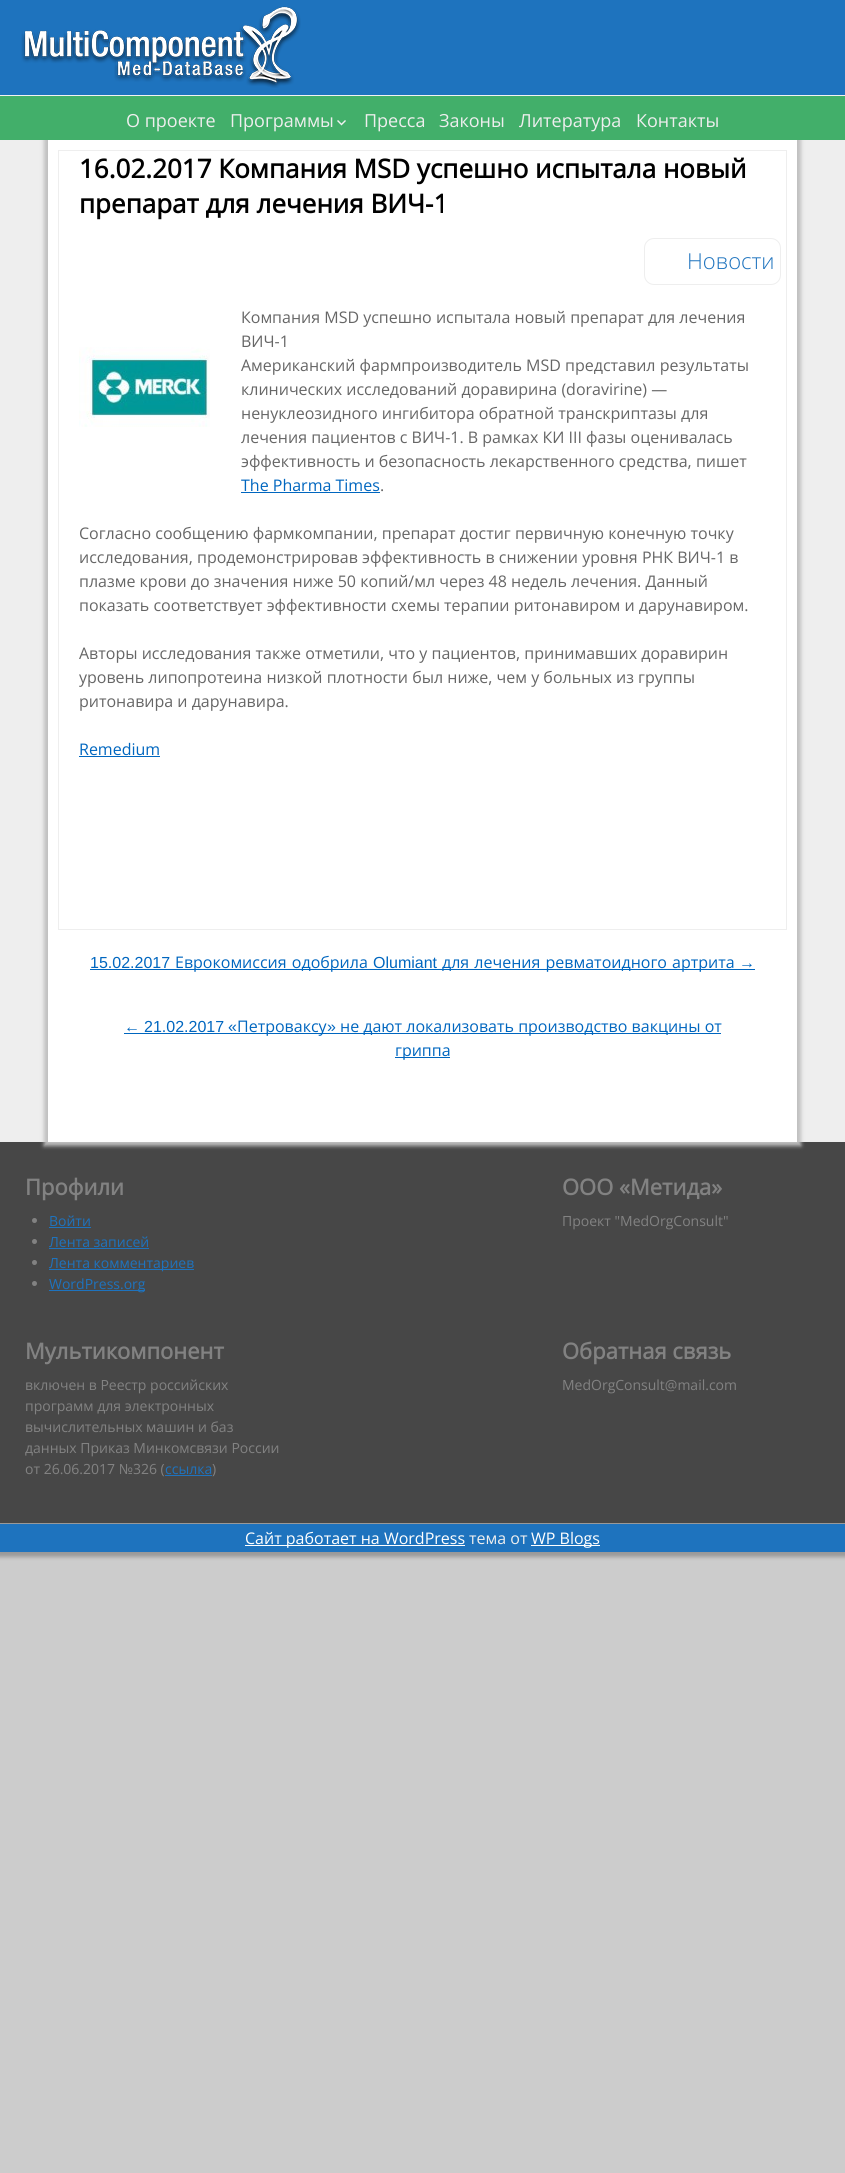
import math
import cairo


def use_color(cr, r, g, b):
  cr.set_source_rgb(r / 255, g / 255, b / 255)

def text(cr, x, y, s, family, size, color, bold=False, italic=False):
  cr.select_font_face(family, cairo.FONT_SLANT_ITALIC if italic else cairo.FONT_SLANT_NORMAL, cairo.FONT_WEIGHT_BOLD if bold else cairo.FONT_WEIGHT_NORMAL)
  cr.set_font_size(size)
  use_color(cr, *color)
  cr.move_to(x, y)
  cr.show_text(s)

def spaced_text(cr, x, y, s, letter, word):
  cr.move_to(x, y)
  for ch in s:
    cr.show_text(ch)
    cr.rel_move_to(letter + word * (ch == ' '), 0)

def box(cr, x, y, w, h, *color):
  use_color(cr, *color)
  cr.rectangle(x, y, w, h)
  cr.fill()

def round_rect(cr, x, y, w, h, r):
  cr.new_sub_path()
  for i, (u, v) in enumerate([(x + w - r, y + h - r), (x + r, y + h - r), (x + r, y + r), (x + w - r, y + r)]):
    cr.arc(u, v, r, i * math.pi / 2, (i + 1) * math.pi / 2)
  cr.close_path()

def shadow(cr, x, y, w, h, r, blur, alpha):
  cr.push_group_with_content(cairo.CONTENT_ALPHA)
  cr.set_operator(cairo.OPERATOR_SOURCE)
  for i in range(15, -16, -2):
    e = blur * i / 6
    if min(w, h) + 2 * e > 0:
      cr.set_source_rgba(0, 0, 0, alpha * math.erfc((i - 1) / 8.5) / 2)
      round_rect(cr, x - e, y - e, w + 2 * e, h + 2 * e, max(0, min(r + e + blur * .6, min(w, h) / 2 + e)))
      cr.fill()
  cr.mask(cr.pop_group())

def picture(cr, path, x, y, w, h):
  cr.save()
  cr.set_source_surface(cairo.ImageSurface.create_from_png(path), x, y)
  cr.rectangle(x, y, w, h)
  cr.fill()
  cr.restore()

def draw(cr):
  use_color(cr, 204, 204, 204)
  cr.paint()
  use_color(cr, 153, 153, 153)
  shadow(cr, -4, -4, 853, 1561, 0, 2, 1)
  box(cr, 0, 140, 845, 1002, 238, 238, 238)
  box(cr, 0, 0, 845, 95, 30, 115, 190)
  picture(cr, "img_01.png", 21, 6, 280, 82)
  box(cr, 0, 1142, 845, 381, 71, 71, 71)
  use_color(cr, 191, 191, 191)
  shadow(cr, 44, 136, 757, 1010, 0, 2, 1)
  box(cr, 0, 96, 845, 44, 66, 175, 106)
  box(cr, 0, 95, 845, 1, 242, 242, 242)
  picture(cr, "img_02.png", 337, 120, 9, 6)
  box(cr, 48, 140, 749, 1002, 255, 255, 255)
  cr.rectangle(58.5, 150.5, 728, 779)
  use_color(cr, 238, 238, 238)
  cr.set_line_width(1)
  cr.stroke()
  round_rect(cr, 644.5, 238.5, 136, 46, 9.5)
  cr.stroke()
  picture(cr, "img_03.png", 79, 347, 131, 80)
  box(cr, 241, 492, 139, 1, 0, 102, 191)
  box(cr, 79, 756, 81, 1, 0, 102, 191)
  box(cr, 90, 969, 665, 1, 0, 102, 191)
  box(cr, 124, 1033, 597, 1, 0, 102, 191)
  box(cr, 395, 1057, 55, 1, 0, 102, 191)
  use_color(cr, 130, 130, 130)
  cr.arc(34.5, 1220.5, 2.5, 0, 2 * math.pi)
  cr.fill()
  box(cr, 49, 1227, 42, 1, 30, 115, 190)
  use_color(cr, 130, 130, 130)
  cr.arc(34.5, 1241.5, 2.5, 0, 2 * math.pi)
  cr.fill()
  box(cr, 49, 1248, 100, 1, 30, 115, 190)
  use_color(cr, 130, 130, 130)
  cr.arc(34.5, 1262.5, 2.5, 0, 2 * math.pi)
  cr.fill()
  box(cr, 49, 1269, 145, 1, 30, 115, 190)
  use_color(cr, 130, 130, 130)
  cr.arc(34.5, 1283.5, 2.5, 0, 2 * math.pi)
  cr.fill()
  box(cr, 49, 1290, 96, 1, 30, 115, 190)
  box(cr, 165, 1475, 47, 1, 30, 115, 190)
  box(cr, 0, 1524, 845, 28, 30, 115, 190)
  box(cr, 245, 1545, 220, 1, 255, 255, 255)
  box(cr, 531, 1545, 69, 1, 255, 255, 255)
  text(cr, 126, 127, "О проекте", "Open Sans", 18, (238, 238, 238))
  text(cr, 230, 127, "Программы", "Open Sans", 18, (238, 238, 238))
  text(cr, 364, 127, "Пресса", "Open Sans", 18, (238, 238, 238))
  text(cr, 439, 127, "Законы", "Open Sans", 18, (238, 238, 238))
  text(cr, 519, 127, "Литература", "Open Sans", 18, (238, 238, 238))
  text(cr, 636, 127, "Контакты", "Open Sans", 18, (238, 238, 238))
  text(cr, 79, 178, "16.02.2017 Компания MSD успешно испытала новый", "Open Sans", 26, (0, 0, 0), bold=True)
  text(cr, 79, 213, "препарат для лечения ВИЧ-1", "Open Sans", 26, (0, 0, 0), bold=True)
  text(cr, 687, 269, "Новости", "Open Sans Light", 22, (30, 115, 190))
  text(cr, 241, 323, "Компания MSD успешно испытала новый препарат для лечения", "Open Sans", 16, (102, 102, 102))
  text(cr, 241, 347, "ВИЧ-1", "Open Sans", 16, (102, 102, 102))
  text(cr, 241, 371, "Американский фармпроизводитель MSD представил результаты", "Open Sans", 16, (102, 102, 102))
  text(cr, 241, 395, "клинических исследований доравирина (doravirine) —", "Open Sans", 16, (102, 102, 102))
  text(cr, 241, 419, "ненуклеозидного ингибитора обратной транскриптазы для", "Open Sans", 16, (102, 102, 102))
  text(cr, 241, 443, "лечения пациентов с ВИЧ-1. В рамках КИ III фазы оценивалась", "Open Sans", 16, (102, 102, 102))
  text(cr, 241, 467, "эффективность и безопасность лекарственного средства, пишет", "Open Sans", 16, (102, 102, 102))
  text(cr, 241, 491, "The Pharma Times", "Open Sans", 16, (0, 102, 191))
  text(cr, 380, 491, ".", "Open Sans", 16, (102, 102, 102))
  text(cr, 79, 539, "Согласно сообщению фармкомпании, препарат достиг первичную конечную точку", "Open Sans", 16, (102, 102, 102))
  text(cr, 79, 563, "исследования, продемонстрировав эффективность в снижении уровня РНК ВИЧ-1 в", "Open Sans", 16, (102, 102, 102))
  text(cr, 79, 587, "плазме крови до значения ниже 50 копий/мл через 48 недель лечения. Данный", "Open Sans", 16, (102, 102, 102))
  text(cr, 79, 611, "показать соответствует эффективности схемы терапии ритонавиром и дарунавиром.", "Open Sans", 16, (102, 102, 102))
  text(cr, 79, 659, "Авторы исследования также отметили, что у пациентов, принимавших доравирин", "Open Sans", 16, (102, 102, 102))
  text(cr, 79, 683, "уровень липопротеина низкой плотности был ниже, чем у больных из группы", "Open Sans", 16, (102, 102, 102))
  text(cr, 79, 707, "ритонавира и дарунавира.", "Open Sans", 16, (102, 102, 102))
  text(cr, 79, 755, "Remedium", "Open Sans", 16, (0, 102, 191))
  text(cr, 90, 968, "15.02.2017", "Liberation Sans", 16, (0, 102, 191))
  cr.select_font_face("Open Sans")
  spaced_text(cr, 175, 968, "Еврокомиссия одобрила", 0, 1)
  text(cr, 373, 968, "Olumiant", "Liberation Sans", 16, (0, 102, 191))
  cr.select_font_face("Open Sans")
  spaced_text(cr, 442, 968, "для лечения ревматоидного артрита", 0, 1)
  text(cr, 739, 968, "→", "Liberation Sans", 16, (0, 102, 191))
  text(cr, 124, 1032, "←", "Liberation Sans", 16, (0, 102, 191))
  text(cr, 144, 1032, "21.02.2017", "Liberation Sans", 16, (0, 102, 191))
  text(cr, 228, 1032, "«", "Liberation Sans", 16, (0, 102, 191))
  text(cr, 237, 1032, "Петроваксу", "Open Sans", 16, (0, 102, 191))
  text(cr, 327, 1032, "»", "Liberation Sans", 16, (0, 102, 191))
  text(cr, 340, 1032, "не дают локализовать производство вакцины от", "Open Sans", 16, (0, 102, 191))
  text(cr, 395, 1056, "гриппа", "Open Sans", 16, (0, 102, 191))
  text(cr, 25, 1195, "Профили", "Open Sans", 22, (130, 130, 130), bold=True)
  text(cr, 49, 1226, "Войти", "Open Sans", 14, (30, 115, 190))
  text(cr, 49, 1247, "Лента записей", "Open Sans", 14, (30, 115, 190))
  text(cr, 49, 1268, "Лента комментариев", "Open Sans", 14, (30, 115, 190))
  text(cr, 49, 1289, "WordPress.org", "Open Sans", 14, (30, 115, 190))
  text(cr, 562, 1195, "ООО «Метида»", "Open Sans", 22, (130, 130, 130), bold=True)
  text(cr, 562, 1226, "Проект \"MedOrgConsult\"", "Open Sans", 14, (130, 130, 130))
  text(cr, 25, 1359, "Мультикомпонент", "Open Sans", 22, (130, 130, 130), bold=True)
  text(cr, 25, 1390, "включен в Реестр российских", "Open Sans", 14, (130, 130, 130))
  text(cr, 25, 1411, "программ для электронных", "Open Sans", 14, (130, 130, 130))
  text(cr, 25, 1432, "вычислительных машин и баз", "Open Sans", 14, (130, 130, 130))
  text(cr, 25, 1453, "данных Приказ Минкомсвязи России", "Open Sans", 14, (130, 130, 130))
  text(cr, 25, 1474, "от 26.06.2017 №326 (", "Open Sans", 14, (130, 130, 130))
  text(cr, 165, 1474, "ссылка", "Open Sans", 14, (30, 115, 190))
  text(cr, 212, 1474, ")", "Open Sans", 14, (130, 130, 130))
  text(cr, 562, 1359, "Обратная связь", "Open Sans", 22, (130, 130, 130), bold=True)
  text(cr, 562, 1390, "MedOrgConsult@mail.com", "Open Sans", 14, (130, 130, 130))
  text(cr, 245, 1544, "Сайт работает на WordPress", "Open Sans", 16, (255, 255, 255))
  text(cr, 469, 1544, "тема от", "Open Sans", 16, (238, 238, 238))
  text(cr, 531, 1544, "WP Blogs", "Open Sans", 16, (255, 255, 255))


surface = cairo.ImageSurface(cairo.FORMAT_RGB24, 845, 2173)
cr = cairo.Context(surface)
options = cairo.FontOptions()
options.set_hint_metrics(cairo.HINT_METRICS_OFF)
options.set_hint_style(cairo.HINT_STYLE_NONE)
cr.set_font_options(options)
cr.set_miter_limit(4)
draw(cr)
surface.write_to_png("out.png")
